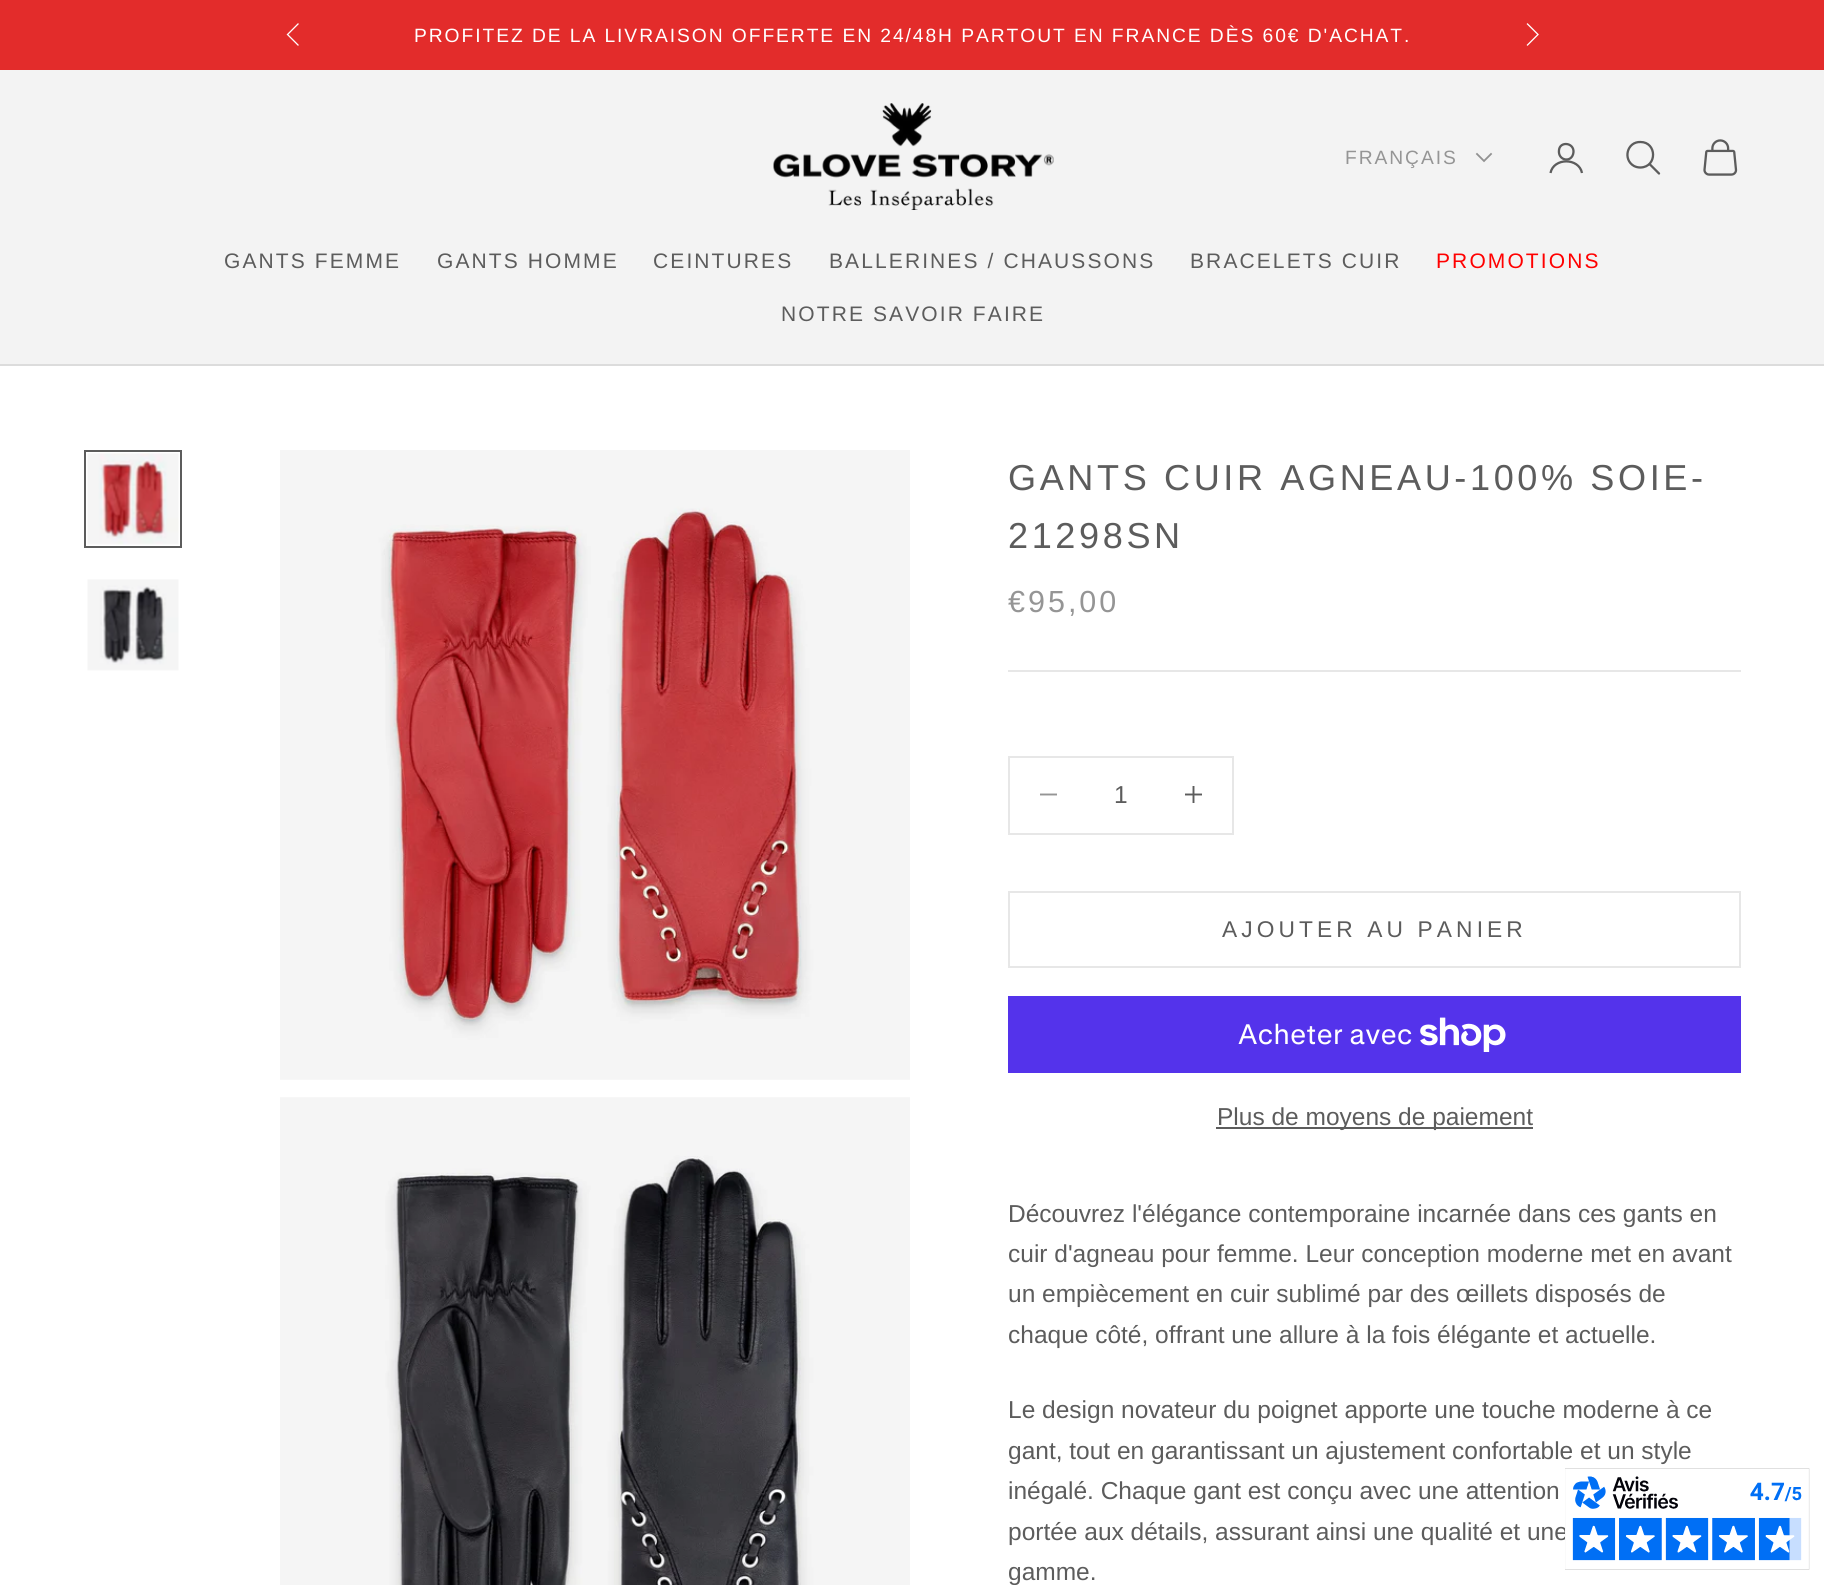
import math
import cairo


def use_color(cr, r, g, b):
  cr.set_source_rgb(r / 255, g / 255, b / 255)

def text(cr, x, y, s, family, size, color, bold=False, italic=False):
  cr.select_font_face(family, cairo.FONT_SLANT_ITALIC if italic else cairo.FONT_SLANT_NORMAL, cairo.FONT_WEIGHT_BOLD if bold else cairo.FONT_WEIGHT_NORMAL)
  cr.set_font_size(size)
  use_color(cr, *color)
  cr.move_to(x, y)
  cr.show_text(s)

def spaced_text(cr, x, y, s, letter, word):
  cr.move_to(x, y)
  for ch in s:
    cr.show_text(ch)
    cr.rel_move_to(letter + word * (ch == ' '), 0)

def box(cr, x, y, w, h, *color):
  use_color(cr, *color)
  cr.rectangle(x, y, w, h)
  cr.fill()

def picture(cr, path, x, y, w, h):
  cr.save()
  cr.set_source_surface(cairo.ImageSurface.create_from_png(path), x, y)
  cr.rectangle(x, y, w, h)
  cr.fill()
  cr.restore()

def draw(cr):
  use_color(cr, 255, 255, 255)
  cr.paint()
  box(cr, 0, 0, 1824, 70, 227, 44, 43)
  cr.new_path()
  cr.move_to(298, 24)
  cr.line_to(287.5, 34.5)
  cr.line_to(298, 45)
  use_color(cr, 255, 255, 255)
  cr.set_line_width(1.3)
  cr.set_line_cap(cairo.LINE_CAP_SQUARE)
  cr.stroke()
  cr.new_path()
  cr.move_to(1527.5, 45)
  cr.line_to(1538, 34.5)
  cr.line_to(1527.5, 24)
  cr.stroke()
  box(cr, 0, 70, 1824, 294, 243, 243, 243)
  box(cr, 0, 364, 1824, 2, 220, 220, 220)
  picture(cr, "img_01.png", 773, 103, 281, 107)
  cr.new_path()
  cr.move_to(1477, 154)
  cr.line_to(1484, 161)
  cr.line_to(1491, 154)
  use_color(cr, 145, 145, 145)
  cr.set_line_width(1.8)
  cr.stroke()
  cr.new_path()
  cr.move_to(1573.5, 152)
  cr.curve_to(1572.5, 163.5, 1557.5, 161, 1559, 150)
  cr.curve_to(1560, 141, 1574, 142.5, 1573.5, 152)
  cr.close_path()
  use_color(cr, 92, 92, 92)
  cr.set_line_width(2.3)
  cr.set_line_cap(cairo.LINE_CAP_ROUND)
  cr.set_line_join(cairo.LINE_JOIN_ROUND)
  cr.stroke()
  cr.new_path()
  cr.move_to(1550.5, 173)
  cr.curve_to(1553.5, 157.5, 1579, 157.5, 1582, 173)
  cr.set_line_cap(cairo.LINE_CAP_BUTT)
  cr.set_line_join(cairo.LINE_JOIN_MITER)
  cr.stroke()
  cr.new_path()
  cr.move_to(1640.5, 142)
  cr.curve_to(1627, 141.5, 1622.5, 159.5, 1634, 166)
  cr.curve_to(1636, 167, 1638, 167.5, 1640.5, 167.5)
  cr.curve_to(1657.5, 167, 1657, 142, 1640.5, 142)
  cr.close_path()
  cr.stroke()
  cr.new_path()
  cr.move_to(1650, 164.5)
  cr.line_to(1659, 173.5)
  cr.set_line_cap(cairo.LINE_CAP_ROUND)
  cr.stroke()
  picture(cr, "img_02.png", 1703, 139, 35, 37)
  cr.rectangle(85, 451, 96, 96)
  cr.set_line_width(2)
  cr.set_line_cap(cairo.LINE_CAP_BUTT)
  cr.stroke()
  picture(cr, "img_03.png", 87, 453, 92, 92)
  picture(cr, "img_04.png", 87, 579, 92, 92)
  picture(cr, "img_05.png", 280, 450, 630, 630)
  picture(cr, "img_06.png", 280, 1097, 630, 488)
  box(cr, 1008, 670, 733, 2, 231, 231, 231)
  cr.rectangle(1009, 757, 224, 77)
  cr.stroke()
  cr.save()
  cr.rectangle(1040, 786, 17, 17)
  cr.clip()
  cr.new_path()
  cr.move_to(1039.5, 794.5)
  cr.line_to(1057, 794.5)
  use_color(cr, 149, 149, 149)
  cr.set_line_width(1.9)
  cr.stroke()
  cr.restore()
  cr.new_path()
  cr.move_to(1193.5, 786)
  cr.line_to(1193.5, 803)
  cr.move_to(1185, 794.5)
  cr.line_to(1202, 794.5)
  use_color(cr, 92, 92, 92)
  cr.set_line_width(1.9)
  cr.stroke()
  cr.rectangle(1009, 892, 731, 75)
  use_color(cr, 231, 231, 231)
  cr.set_line_width(2)
  cr.stroke()
  box(cr, 1008, 996, 733, 77, 84, 51, 235)
  picture(cr, "img_07.png", 1420, 1017, 86, 35)
  box(cr, 1216, 1127, 317, 2, 92, 92, 92)
  cr.select_font_face("Liberation Sans")
  cr.set_font_size(19.25)
  use_color(cr, 255, 255, 255)
  spaced_text(cr, 414, 42, "PROFITEZ DE LA LIVRAISON OFFERTE EN 24/48H PARTOUT EN FRANCE DÈS 60€ D'ACHAT.", 1.93, 0)
  use_color(cr, 149, 149, 149)
  spaced_text(cr, 1345, 164, "FRANÇAIS", 1.93, 0)
  cr.set_font_size(21)
  use_color(cr, 92, 92, 92)
  spaced_text(cr, 224, 268, "GANTS FEMME", 2.1, 0)
  spaced_text(cr, 437, 268, "GANTS HOMME", 2.1, 0)
  spaced_text(cr, 653, 268, "CEINTURES", 2.1, 0)
  spaced_text(cr, 829, 268, "BALLERINES / CHAUSSONS", 2.1, 0)
  spaced_text(cr, 1190, 268, "BRACELETS CUIR", 2.1, 0)
  use_color(cr, 255, 0, 0)
  spaced_text(cr, 1436, 268, "PROMOTIONS", 2.1, 0)
  use_color(cr, 92, 92, 92)
  spaced_text(cr, 781, 321, "NOTRE SAVOIR FAIRE", 2.1, 0)
  cr.set_font_size(36.1)
  spaced_text(cr, 1008, 490, "GANTS CUIR AGNEAU-100% SOIE-", 3.6, 0)
  spaced_text(cr, 1008, 548, "21298SN", 3.6, 0)
  cr.set_font_size(30.5)
  use_color(cr, 149, 149, 149)
  spaced_text(cr, 1008, 612, "€95,00", 3, 0)
  text(cr, 1114, 803, "1", "Liberation Sans", 24.5, (92, 92, 92))
  cr.set_font_size(22.75)
  spaced_text(cr, 1222, 937, "AJOUTER AU PANIER", 4.1, 0)
  text(cr, 1238, 1044, "Acheter avec", "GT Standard", 28, (255, 255, 255))
  text(cr, 1217, 1125, "Plus de moyens de paiement", "Liberation Sans", 24.5, (92, 92, 92))
  text(cr, 1008, 1222, "Découvrez l'élégance contemporaine incarnée dans ces gants en", "Liberation Sans", 24.5, (92, 92, 92))
  text(cr, 1008, 1262, "cuir d'agneau pour femme. Leur conception moderne met en avant", "Liberation Sans", 24.5, (92, 92, 92))
  text(cr, 1008, 1302, "un empiècement en cuir sublimé par des œillets disposés de", "Liberation Sans", 24.5, (92, 92, 92))
  text(cr, 1008, 1343, "chaque côté, offrant une allure à la fois élégante et actuelle.", "Liberation Sans", 24.5, (92, 92, 92))
  text(cr, 1008, 1418, "Le design novateur du poignet apporte une touche moderne à ce", "Liberation Sans", 24.5, (92, 92, 92))
  text(cr, 1008, 1459, "gant, tout en garantissant un ajustement confortable et un style", "Liberation Sans", 24.5, (92, 92, 92))
  text(cr, 1008, 1499, "inégalé. Chaque gant est conçu avec une attention", "Liberation Sans", 24.5, (92, 92, 92))
  text(cr, 1008, 1540, "portée aux détails, assurant ainsi une qualité et une", "Liberation Sans", 24.5, (92, 92, 92))
  text(cr, 1008, 1580, "gamme.", "Liberation Sans", 24.5, (92, 92, 92))
  picture(cr, "img_08.png", 1565, 1468, 245, 102)


surface = cairo.ImageSurface(cairo.FORMAT_RGB24, 1824, 1585)
cr = cairo.Context(surface)
options = cairo.FontOptions()
options.set_hint_metrics(cairo.HINT_METRICS_OFF)
options.set_hint_style(cairo.HINT_STYLE_NONE)
cr.set_font_options(options)
cr.set_miter_limit(4)
draw(cr)
surface.write_to_png("out.png")
